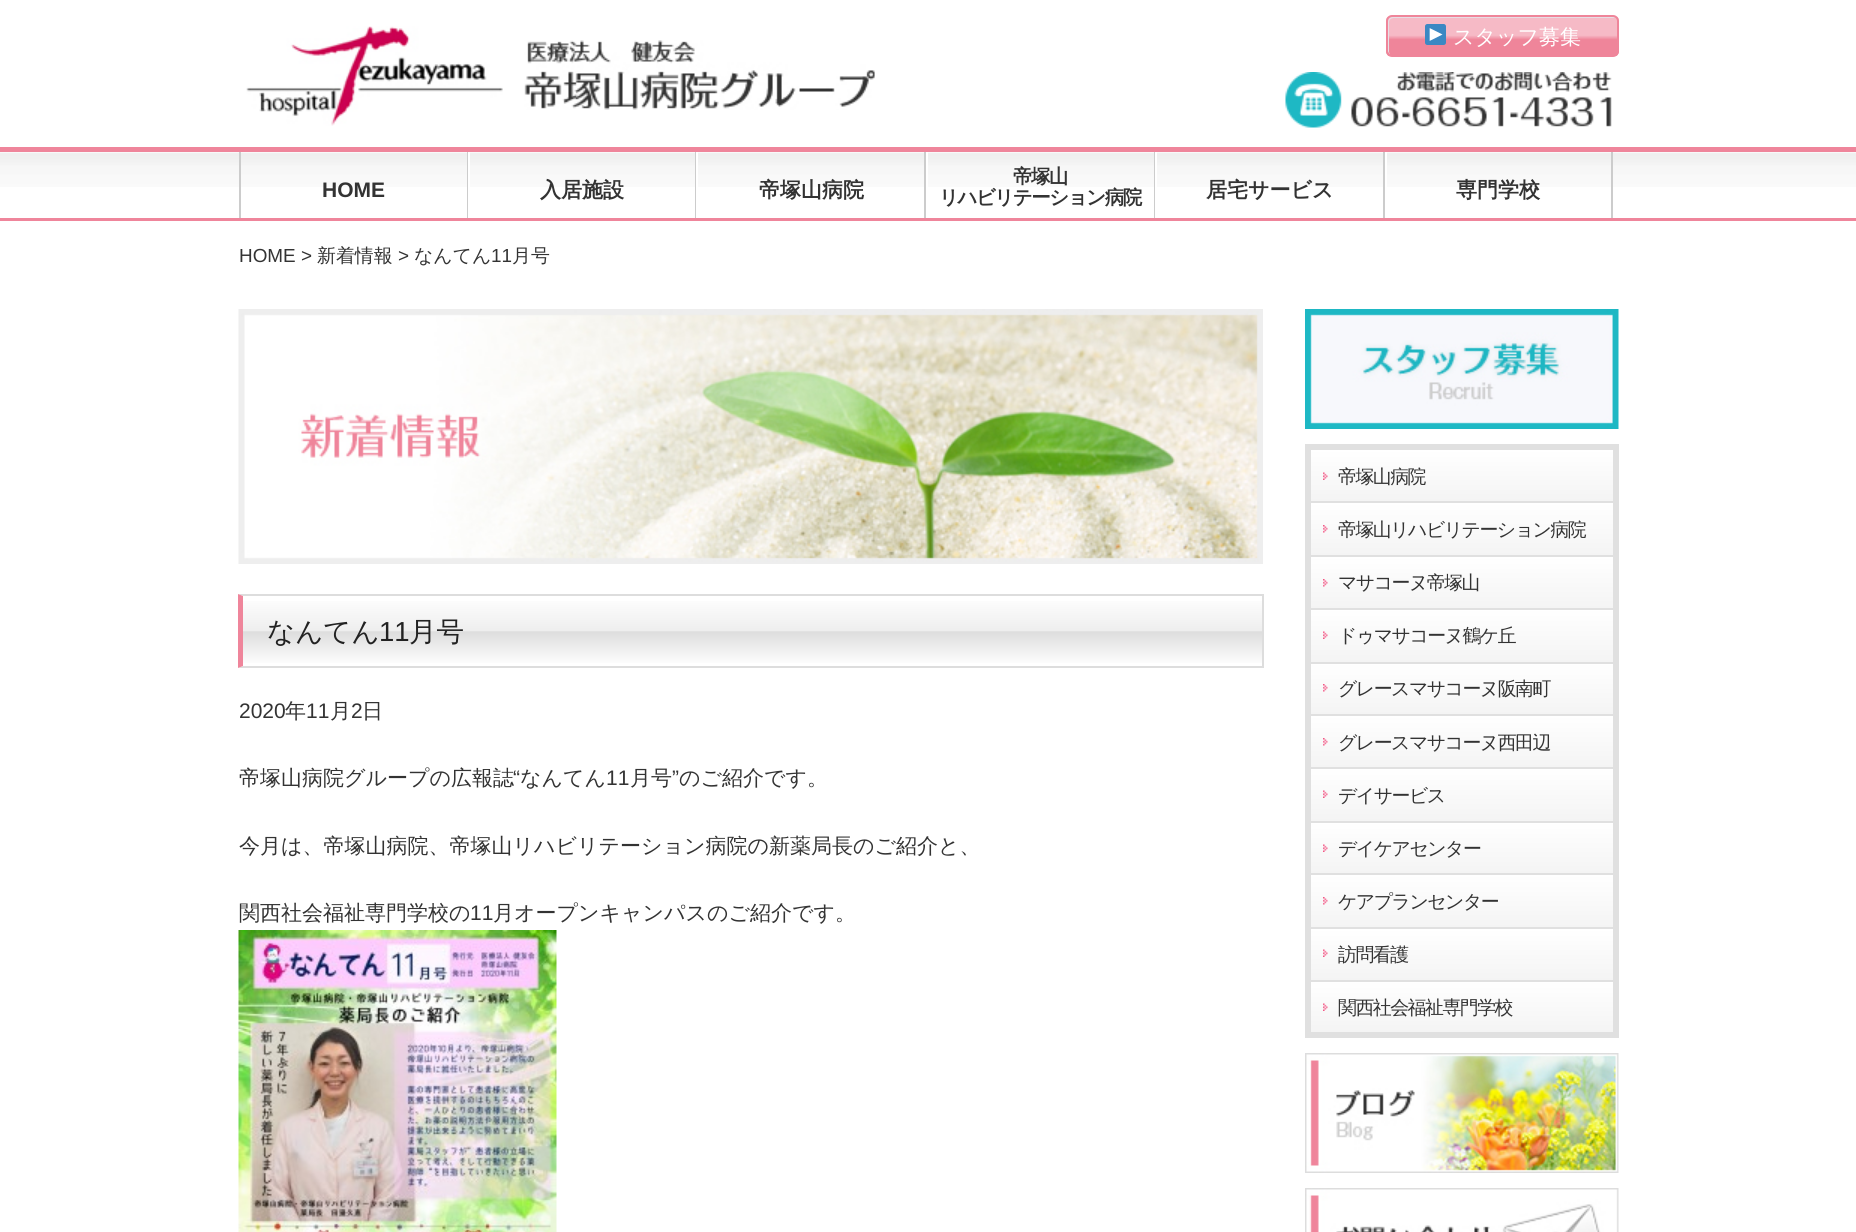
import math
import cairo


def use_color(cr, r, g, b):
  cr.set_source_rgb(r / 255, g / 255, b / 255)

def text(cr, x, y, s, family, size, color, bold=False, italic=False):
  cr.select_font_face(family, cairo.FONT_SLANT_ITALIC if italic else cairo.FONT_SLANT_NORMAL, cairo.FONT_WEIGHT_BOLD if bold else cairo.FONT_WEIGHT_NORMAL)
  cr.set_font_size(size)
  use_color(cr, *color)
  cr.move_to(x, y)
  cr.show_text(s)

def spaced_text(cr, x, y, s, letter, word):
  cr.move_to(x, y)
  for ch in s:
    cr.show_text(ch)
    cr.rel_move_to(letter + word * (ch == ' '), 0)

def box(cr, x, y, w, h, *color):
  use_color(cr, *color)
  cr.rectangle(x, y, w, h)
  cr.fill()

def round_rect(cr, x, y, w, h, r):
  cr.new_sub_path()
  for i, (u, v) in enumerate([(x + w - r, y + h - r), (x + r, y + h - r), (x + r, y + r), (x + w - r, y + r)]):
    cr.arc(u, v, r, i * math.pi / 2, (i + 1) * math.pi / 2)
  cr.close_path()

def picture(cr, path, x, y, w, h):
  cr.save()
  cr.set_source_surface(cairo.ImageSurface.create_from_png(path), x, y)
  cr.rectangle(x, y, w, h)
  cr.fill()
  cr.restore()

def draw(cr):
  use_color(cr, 255, 255, 255)
  cr.paint()
  picture(cr, "img_01.png", 246, 26, 257, 100)
  cr.save()
  round_rect(cr, 1386, 15, 233, 42, 6)
  cr.clip()
  gradient = cairo.LinearGradient(1388, 17, 1388, 56)
  gradient.add_color_stop_rgba(0.47, 0.965, 0.729, 0.776, 1)
  gradient.add_color_stop_rgba(0.58, 0.937, 0.522, 0.604, 1)
  cr.set_source(gradient)
  cr.rectangle(1386, 17, 233, 39)
  cr.fill()
  cr.restore()
  use_color(cr, 230, 223, 230)
  cr.new_path()
  cr.move_to(1394, 18)
  cr.line_to(1615, 18)
  cr.curve_to(1614, 17, 1613, 17, 1612, 17)
  cr.line_to(1393, 17)
  cr.curve_to(1390, 17, 1388, 19, 1388, 22)
  cr.line_to(1388, 51)
  cr.curve_to(1388, 52, 1389, 54, 1390, 55)
  cr.line_to(1389, 52)
  cr.line_to(1389, 22)
  cr.curve_to(1389, 20, 1391, 18, 1394, 18)
  cr.close_path()
  cr.fill()
  round_rect(cr, 1387, 16, 231, 40, 5)
  use_color(cr, 239, 133, 154)
  cr.stroke()
  picture(cr, "img_02.png", 1425, 24, 21, 21)
  picture(cr, "img_03.png", 1285, 72, 327, 56)
  picture(cr, "img_04.png", 524, 40, 351, 70)
  picture(cr, "img_05.png", 0, 152, 1856, 35)
  box(cr, 0, 147, 1856, 5, 239, 133, 155)
  box(cr, 0, 218, 1856, 3, 239, 133, 155)
  box(cr, 467, 152, 1, 66, 204, 204, 204)
  box(cr, 239, 152, 2, 66, 204, 204, 204)
  box(cr, 695, 152, 1, 66, 204, 204, 204)
  box(cr, 468, 152, 2, 35, 255, 255, 255)
  box(cr, 924, 152, 2, 66, 204, 204, 204)
  box(cr, 696, 152, 2, 35, 255, 255, 255)
  box(cr, 1154, 152, 1, 66, 204, 204, 204)
  box(cr, 926, 152, 2, 35, 255, 255, 255)
  box(cr, 1383, 152, 2, 66, 204, 204, 204)
  box(cr, 1155, 152, 2, 35, 255, 255, 255)
  box(cr, 1611, 152, 2, 66, 204, 204, 204)
  box(cr, 1385, 152, 2, 35, 255, 255, 255)
  picture(cr, "img_06.png", 238, 309, 1025, 255)
  gradient = cairo.LinearGradient(243, 596, 243, 666)
  gradient.add_color_stop_rgba(0, 1, 1, 1, 1)
  gradient.add_color_stop_rgba(0.5, 0.933, 0.933, 0.933, 1)
  gradient.add_color_stop_rgba(0.51, 0.867, 0.867, 0.867, 1)
  gradient.add_color_stop_rgba(1, 1, 1, 1, 1)
  cr.set_source(gradient)
  cr.rectangle(243, 601, 1019, 62)
  cr.fill()
  use_color(cr, 221, 221, 221)
  cr.new_path()
  cr.move_to(238, 594)
  cr.line_to(1263, 594)
  cr.line_to(1262, 596)
  cr.line_to(243, 596)
  cr.close_path()
  cr.fill()
  box(cr, 1262, 594, 2, 74, 221, 221, 221)
  cr.new_path()
  cr.move_to(1263, 668)
  cr.line_to(238, 668)
  cr.line_to(243, 666)
  cr.line_to(1262, 666)
  cr.close_path()
  cr.fill()
  use_color(cr, 239, 133, 155)
  cr.new_path()
  cr.move_to(238, 668)
  cr.line_to(238, 594)
  cr.line_to(243, 596)
  cr.line_to(243, 666)
  cr.close_path()
  cr.fill()
  picture(cr, "img_07.png", 238, 930, 319, 302)
  picture(cr, "img_08.png", 1305, 309, 314, 120)
  cr.rectangle(1307.5, 446.5, 309, 589)
  use_color(cr, 224, 224, 224)
  cr.set_line_width(5)
  cr.stroke()
  cr.rectangle(1311, 450, 302, 583)
  cr.set_line_width(2)
  cr.stroke()
  gradient = cairo.LinearGradient(1462, 450, 1462, 501)
  gradient.add_color_stop_rgba(0, 1, 1, 1, 1)
  gradient.add_color_stop_rgba(1, 0.957, 0.957, 0.957, 1)
  cr.set_source(gradient)
  cr.rectangle(1311, 450, 302, 51)
  cr.fill()
  picture(cr, "img_09.png", 1323, 472, 5, 8)
  gradient = cairo.LinearGradient(1462, 503, 1462, 555)
  gradient.add_color_stop_rgba(0, 1, 1, 1, 1)
  gradient.add_color_stop_rgba(1, 0.957, 0.957, 0.957, 1)
  cr.set_source(gradient)
  cr.rectangle(1311, 503, 302, 52)
  cr.fill()
  box(cr, 1311, 501, 302, 2, 224, 224, 224)
  picture(cr, "img_10.png", 1323, 525, 5, 8)
  gradient = cairo.LinearGradient(1462, 557, 1462, 608)
  gradient.add_color_stop_rgba(0, 1, 1, 1, 1)
  gradient.add_color_stop_rgba(1, 0.957, 0.957, 0.957, 1)
  cr.set_source(gradient)
  cr.rectangle(1311, 557, 302, 51)
  cr.fill()
  box(cr, 1311, 555, 302, 2, 224, 224, 224)
  picture(cr, "img_10.png", 1323, 579, 5, 8)
  gradient = cairo.LinearGradient(1462, 609, 1462, 662)
  gradient.add_color_stop_rgba(0, 1, 1, 1, 1)
  gradient.add_color_stop_rgba(1, 0.957, 0.957, 0.957, 1)
  cr.set_source(gradient)
  cr.rectangle(1311, 610, 302, 52)
  cr.fill()
  box(cr, 1311, 608, 302, 2, 224, 224, 224)
  picture(cr, "img_11.png", 1323, 631, 5, 8)
  gradient = cairo.LinearGradient(1462, 663, 1462, 714)
  gradient.add_color_stop_rgba(0, 1, 1, 1, 1)
  gradient.add_color_stop_rgba(1, 0.957, 0.957, 0.957, 1)
  cr.set_source(gradient)
  cr.rectangle(1311, 664, 302, 50)
  cr.fill()
  box(cr, 1311, 662, 302, 2, 224, 224, 224)
  picture(cr, "img_12.png", 1323, 684, 5, 8)
  gradient = cairo.LinearGradient(1462, 716, 1462, 767)
  gradient.add_color_stop_rgba(0, 1, 1, 1, 1)
  gradient.add_color_stop_rgba(1, 0.957, 0.957, 0.957, 1)
  cr.set_source(gradient)
  cr.rectangle(1311, 716, 302, 51)
  cr.fill()
  box(cr, 1311, 714, 302, 2, 224, 224, 224)
  picture(cr, "img_10.png", 1323, 738, 5, 8)
  gradient = cairo.LinearGradient(1462, 768, 1462, 821)
  gradient.add_color_stop_rgba(0, 1, 1, 1, 1)
  gradient.add_color_stop_rgba(1, 0.957, 0.957, 0.957, 1)
  cr.set_source(gradient)
  cr.rectangle(1311, 769, 302, 52)
  cr.fill()
  box(cr, 1311, 767, 302, 2, 224, 224, 224)
  picture(cr, "img_11.png", 1323, 790, 5, 8)
  gradient = cairo.LinearGradient(1462, 822, 1462, 873)
  gradient.add_color_stop_rgba(0, 1, 1, 1, 1)
  gradient.add_color_stop_rgba(1, 0.957, 0.957, 0.957, 1)
  cr.set_source(gradient)
  cr.rectangle(1311, 823, 302, 50)
  cr.fill()
  box(cr, 1311, 821, 302, 2, 224, 224, 224)
  picture(cr, "img_09.png", 1323, 844, 5, 8)
  gradient = cairo.LinearGradient(1462, 875, 1462, 927)
  gradient.add_color_stop_rgba(0, 1, 1, 1, 1)
  gradient.add_color_stop_rgba(1, 0.957, 0.957, 0.957, 1)
  cr.set_source(gradient)
  cr.rectangle(1311, 875, 302, 52)
  cr.fill()
  box(cr, 1311, 873, 302, 2, 224, 224, 224)
  picture(cr, "img_10.png", 1323, 897, 5, 8)
  gradient = cairo.LinearGradient(1462, 929, 1462, 980)
  gradient.add_color_stop_rgba(0, 1, 1, 1, 1)
  gradient.add_color_stop_rgba(1, 0.957, 0.957, 0.957, 1)
  cr.set_source(gradient)
  cr.rectangle(1311, 929, 302, 51)
  cr.fill()
  box(cr, 1311, 927, 302, 2, 224, 224, 224)
  picture(cr, "img_13.png", 1323, 949, 5, 8)
  gradient = cairo.LinearGradient(1462, 981, 1462, 1032)
  gradient.add_color_stop_rgba(0, 1, 1, 1, 1)
  gradient.add_color_stop_rgba(1, 0.957, 0.957, 0.957, 1)
  cr.set_source(gradient)
  cr.rectangle(1311, 982, 302, 50)
  cr.fill()
  box(cr, 1311, 980, 302, 2, 224, 224, 224)
  picture(cr, "img_09.png", 1323, 1003, 5, 8)
  picture(cr, "img_14.png", 1305, 1053, 314, 120)
  picture(cr, "img_15.png", 1305, 1188, 314, 44)
  text(cr, 1453, 44, "スタッフ募集", "WenQuanYi Zen Hei Medium", 21, (255, 255, 255))
  text(cr, 322, 197, "HOME", "Liberation Sans", 21, (51, 51, 51), bold=True)
  text(cr, 540, 197, "入居施設", "WenQuanYi Zen Hei", 21, (51, 51, 51), bold=True)
  text(cr, 759, 197, "帝塚山病院", "WenQuanYi Zen Hei", 21, (51, 51, 51), bold=True)
  cr.set_font_size(19.5)
  spaced_text(cr, 1013, 183, "帝塚山", -1.5, 0)
  spaced_text(cr, 939, 204, "リハビリテーション病院", -1.5, 0)
  text(cr, 1206, 197, "居宅サービス", "WenQuanYi Zen Hei", 21, (51, 51, 51), bold=True)
  text(cr, 1456, 197, "専門学校", "WenQuanYi Zen Hei", 21, (51, 51, 51), bold=True)
  text(cr, 239, 262, "HOME >", "Liberation Sans", 18.9, (51, 51, 51))
  text(cr, 317, 262, "新着情報", "WenQuanYi Zen Hei Medium", 18.9, (51, 51, 51))
  text(cr, 398, 262, ">", "Liberation Sans", 18.9, (51, 51, 51))
  text(cr, 414, 262, "なんてん", "WenQuanYi Zen Hei Medium", 18.9, (51, 51, 51))
  text(cr, 491, 262, "11", "Liberation Sans", 18.9, (51, 51, 51))
  text(cr, 512, 262, "月号", "WenQuanYi Zen Hei Medium", 18.9, (51, 51, 51))
  text(cr, 267, 641, "なんてん", "WenQuanYi Zen Hei Medium", 27.5, (34, 34, 34))
  text(cr, 379, 641, "11", "Liberation Sans", 27.5, (34, 34, 34))
  text(cr, 409, 641, "月号", "WenQuanYi Zen Hei Medium", 27.5, (34, 34, 34))
  text(cr, 239, 718, "2020", "Liberation Sans", 21, (51, 51, 51))
  text(cr, 285, 718, "年", "WenQuanYi Zen Hei Medium", 21, (51, 51, 51))
  text(cr, 306, 718, "11", "Liberation Sans", 21, (51, 51, 51))
  text(cr, 330, 718, "月", "WenQuanYi Zen Hei Medium", 21, (51, 51, 51))
  text(cr, 351, 718, "2", "Liberation Sans", 21, (51, 51, 51))
  text(cr, 362, 718, "日", "WenQuanYi Zen Hei Medium", 21, (51, 51, 51))
  text(cr, 239, 785, "帝塚山病院グループの広報誌", "WenQuanYi Zen Hei Medium", 21, (51, 51, 51))
  text(cr, 513, 785, "“", "Liberation Sans", 21, (51, 51, 51))
  text(cr, 520, 785, "なんてん", "WenQuanYi Zen Hei Medium", 21, (51, 51, 51))
  text(cr, 606, 785, "11", "Liberation Sans", 21, (51, 51, 51))
  text(cr, 630, 785, "月号", "WenQuanYi Zen Hei Medium", 21, (51, 51, 51))
  text(cr, 672, 785, "”", "Liberation Sans", 21, (51, 51, 51))
  text(cr, 679, 785, "のご紹介です。", "WenQuanYi Zen Hei Medium", 21, (51, 51, 51))
  text(cr, 239, 853, "今月は、帝塚山病院、帝塚山リハビリテーション病院の新薬局長のご紹介と、", "WenQuanYi Zen Hei Medium", 21, (51, 51, 51))
  text(cr, 239, 920, "関西社会福祉専門学校の", "WenQuanYi Zen Hei Medium", 21, (51, 51, 51))
  text(cr, 470, 920, "11", "Liberation Sans", 21, (51, 51, 51))
  text(cr, 493, 920, "月オープンキャンパスのご紹介です。", "WenQuanYi Zen Hei Medium", 21, (51, 51, 51))
  cr.set_font_size(18.9)
  spaced_text(cr, 1338, 483, "帝塚山病院", -1.5, 0)
  spaced_text(cr, 1338, 536, "帝塚山リハビリテーション病院", -1.5, 0)
  spaced_text(cr, 1338, 589, "マサコーヌ帝塚山", -1.5, 0)
  spaced_text(cr, 1338, 642, "ドゥマサコーヌ鶴ケ丘", -1.5, 0)
  spaced_text(cr, 1338, 695, "グレースマサコーヌ阪南町", -1.5, 0)
  spaced_text(cr, 1338, 749, "グレースマサコーヌ西田辺", -1.5, 0)
  spaced_text(cr, 1338, 802, "デイサービス", -1.5, 0)
  spaced_text(cr, 1338, 855, "デイケアセンター", -1.5, 0)
  spaced_text(cr, 1338, 908, "ケアプランセンター", -1.5, 0)
  spaced_text(cr, 1338, 961, "訪問看護", -1.5, 0)
  spaced_text(cr, 1338, 1014, "関西社会福祉専門学校", -1.5, 0)


surface = cairo.ImageSurface(cairo.FORMAT_RGB24, 1856, 1232)
cr = cairo.Context(surface)
options = cairo.FontOptions()
options.set_hint_metrics(cairo.HINT_METRICS_OFF)
options.set_hint_style(cairo.HINT_STYLE_NONE)
cr.set_font_options(options)
cr.set_miter_limit(4)
draw(cr)
surface.write_to_png("out.png")
